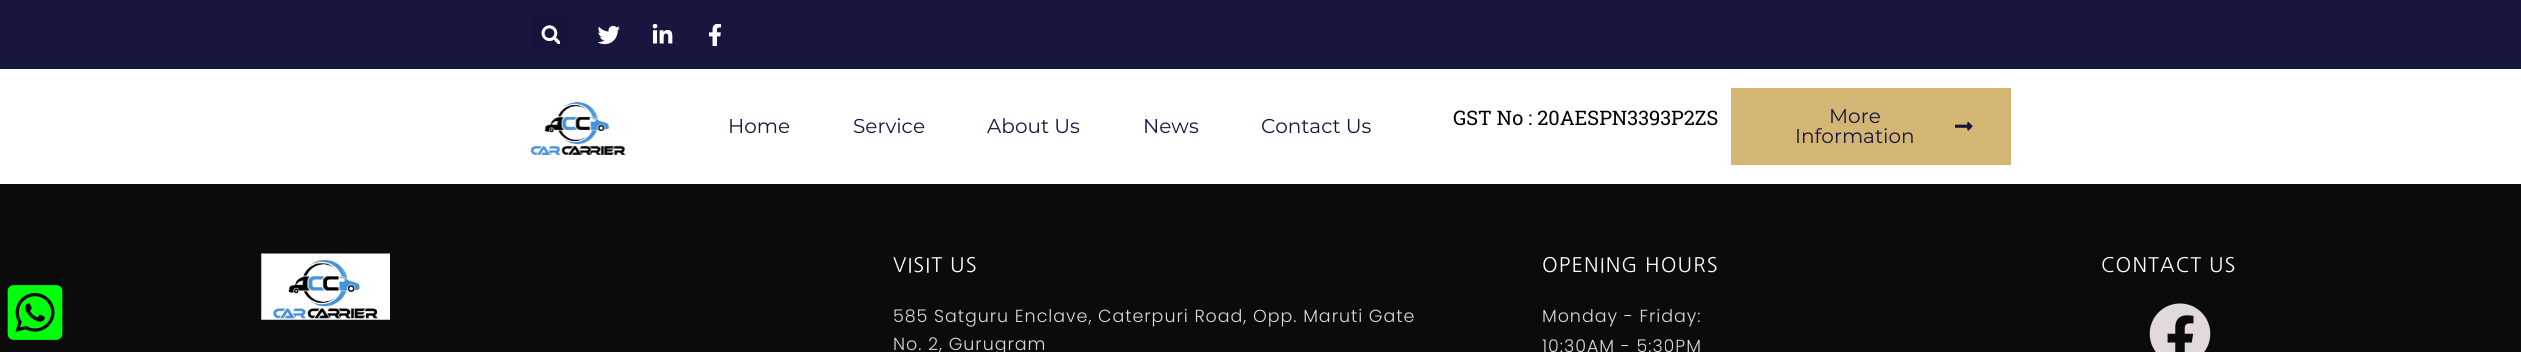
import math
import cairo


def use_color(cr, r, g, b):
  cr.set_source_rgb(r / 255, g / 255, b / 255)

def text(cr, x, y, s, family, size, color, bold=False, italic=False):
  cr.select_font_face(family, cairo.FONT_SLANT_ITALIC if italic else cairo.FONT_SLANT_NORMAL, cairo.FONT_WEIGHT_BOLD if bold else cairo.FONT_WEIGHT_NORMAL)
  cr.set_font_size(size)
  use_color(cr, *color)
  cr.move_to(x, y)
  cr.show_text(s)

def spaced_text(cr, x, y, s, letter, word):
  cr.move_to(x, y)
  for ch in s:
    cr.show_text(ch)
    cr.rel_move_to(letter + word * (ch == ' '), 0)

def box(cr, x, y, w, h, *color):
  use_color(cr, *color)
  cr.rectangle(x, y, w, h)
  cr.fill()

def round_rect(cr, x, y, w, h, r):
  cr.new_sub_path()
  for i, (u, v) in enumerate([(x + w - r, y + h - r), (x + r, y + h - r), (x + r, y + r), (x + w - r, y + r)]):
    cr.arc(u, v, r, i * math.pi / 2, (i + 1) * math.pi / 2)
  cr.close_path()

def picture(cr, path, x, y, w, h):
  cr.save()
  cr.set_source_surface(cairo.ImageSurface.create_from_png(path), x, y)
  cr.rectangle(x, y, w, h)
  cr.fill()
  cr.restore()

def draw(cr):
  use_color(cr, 11, 11, 11)
  cr.paint()
  box(cr, 0, 0, 2521, 69, 22, 22, 63)
  use_color(cr, 21, 21, 60)
  round_rect(cr, 531, 15, 39, 39, 4)
  cr.fill()
  picture(cr, "img_01.png", 541, 25, 19, 19)
  picture(cr, "img_02.png", 598, 25, 22, 20)
  picture(cr, "img_03.png", 652, 24, 21, 20)
  picture(cr, "img_04.png", 708, 24, 14, 22)
  box(cr, 0, 69, 2521, 115, 255, 255, 255)
  picture(cr, "img_05.png", 530, 101, 96, 55)
  box(cr, 1731, 88, 280, 77, 211, 181, 116)
  picture(cr, "img_06.png", 1955, 122, 18, 9)
  picture(cr, "img_07.png", 7, 285, 56, 55)
  picture(cr, "img_08.png", 261, 253, 129, 67)
  picture(cr, "img_09.png", 2149, 303, 62, 49)
  text(cr, 728, 133, "Home", "Montserrat", 20, (22, 22, 63))
  text(cr, 853, 133, "Service", "Montserrat", 20, (22, 22, 63))
  text(cr, 987, 133, "About Us", "Montserrat", 20, (22, 22, 63))
  text(cr, 1143, 133, "News", "Montserrat", 20, (22, 22, 63))
  text(cr, 1261, 133, "Contact Us", "Montserrat", 20, (22, 22, 63))
  text(cr, 1453, 125, "GST No : 20AESPN3393P2ZS", "Roboto Slab", 20, (0, 0, 0))
  text(cr, 1829, 123, "More", "Montserrat", 20, (22, 22, 63))
  text(cr, 1795, 143, "Information", "Montserrat", 20, (22, 22, 63))
  cr.select_font_face("NanumGothic")
  use_color(cr, 255, 255, 255)
  spaced_text(cr, 893, 272, "VISIT US", 1.1, 0)
  cr.select_font_face("Poppins Light")
  cr.set_font_size(17.5)
  use_color(cr, 218, 218, 218)
  spaced_text(cr, 893, 322, "585 Satguru Enclave, Caterpuri Road, Opp. Maruti Gate", 0.95, 0)
  spaced_text(cr, 893, 350, "No. 2, Gurugram", 0.95, 0)
  cr.select_font_face("NanumGothic")
  cr.set_font_size(20)
  use_color(cr, 255, 255, 255)
  spaced_text(cr, 1542, 272, "OPENING HOURS", 1.1, 0)
  cr.select_font_face("Poppins Light")
  cr.set_font_size(17.5)
  use_color(cr, 218, 218, 218)
  spaced_text(cr, 1542, 322, "Monday - Friday:", 0.95, 0)
  spaced_text(cr, 1542, 352, "10:30AM - 5:30PM", 0.95, 0)
  cr.select_font_face("NanumGothic")
  cr.set_font_size(20)
  use_color(cr, 255, 255, 255)
  spaced_text(cr, 2101, 272, "CONTACT US", 1.1, 0)


surface = cairo.ImageSurface(cairo.FORMAT_RGB24, 2521, 352)
cr = cairo.Context(surface)
options = cairo.FontOptions()
options.set_hint_metrics(cairo.HINT_METRICS_OFF)
options.set_hint_style(cairo.HINT_STYLE_NONE)
cr.set_font_options(options)
cr.set_miter_limit(4)
draw(cr)
surface.write_to_png("out.png")
